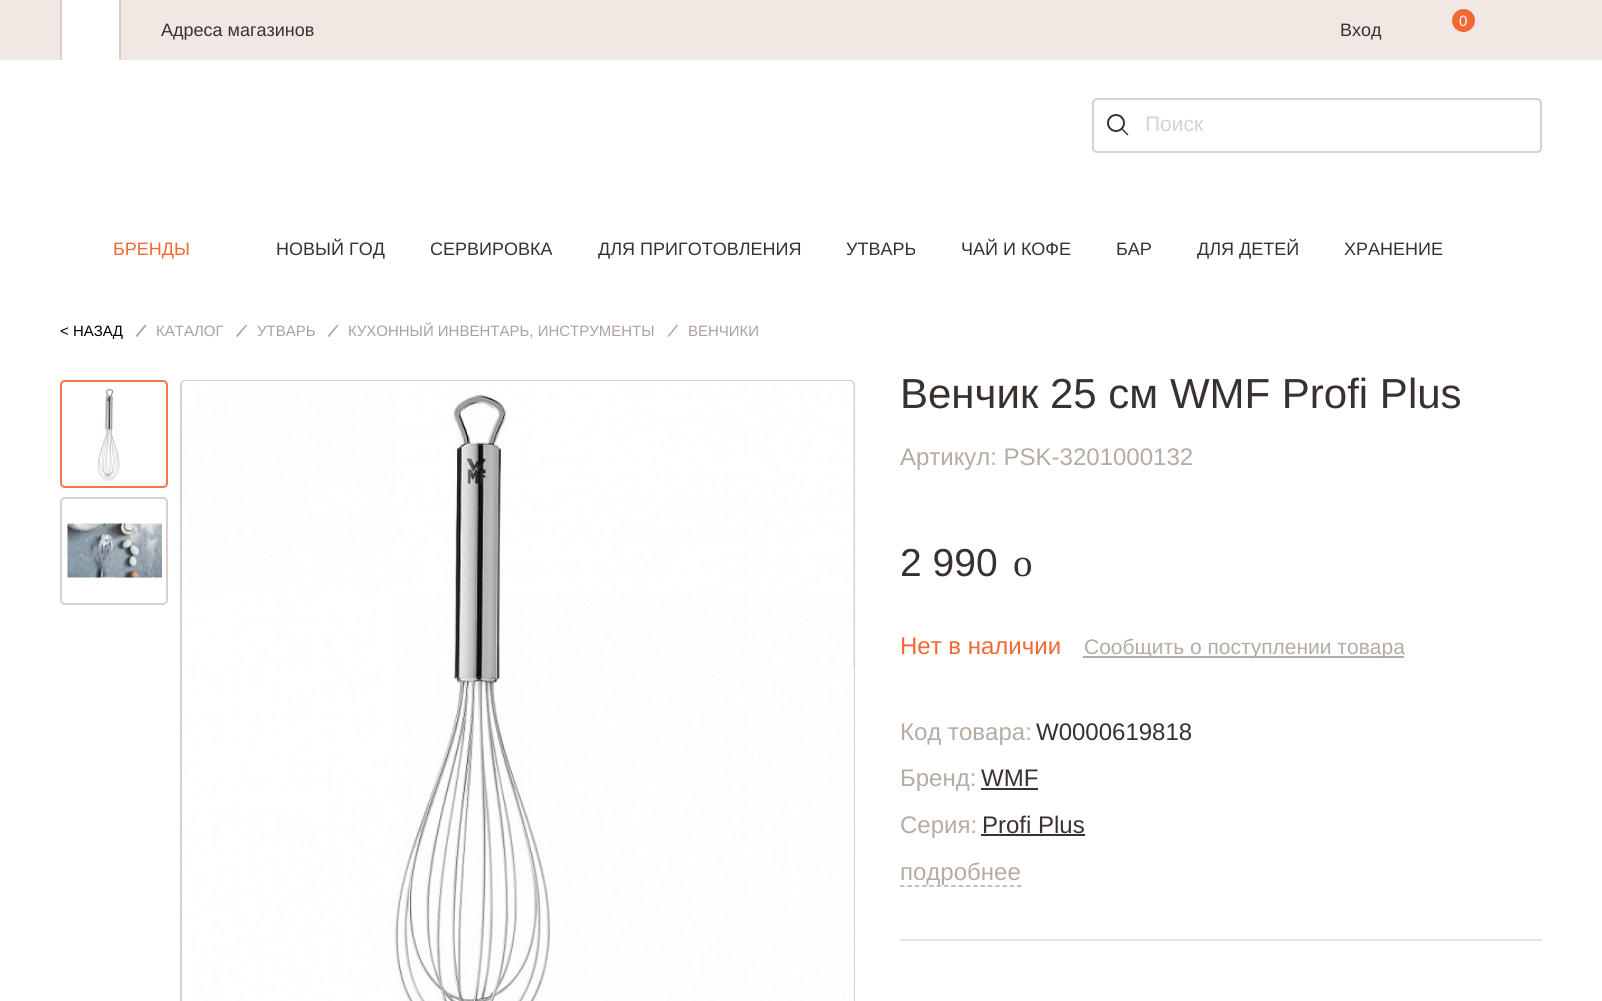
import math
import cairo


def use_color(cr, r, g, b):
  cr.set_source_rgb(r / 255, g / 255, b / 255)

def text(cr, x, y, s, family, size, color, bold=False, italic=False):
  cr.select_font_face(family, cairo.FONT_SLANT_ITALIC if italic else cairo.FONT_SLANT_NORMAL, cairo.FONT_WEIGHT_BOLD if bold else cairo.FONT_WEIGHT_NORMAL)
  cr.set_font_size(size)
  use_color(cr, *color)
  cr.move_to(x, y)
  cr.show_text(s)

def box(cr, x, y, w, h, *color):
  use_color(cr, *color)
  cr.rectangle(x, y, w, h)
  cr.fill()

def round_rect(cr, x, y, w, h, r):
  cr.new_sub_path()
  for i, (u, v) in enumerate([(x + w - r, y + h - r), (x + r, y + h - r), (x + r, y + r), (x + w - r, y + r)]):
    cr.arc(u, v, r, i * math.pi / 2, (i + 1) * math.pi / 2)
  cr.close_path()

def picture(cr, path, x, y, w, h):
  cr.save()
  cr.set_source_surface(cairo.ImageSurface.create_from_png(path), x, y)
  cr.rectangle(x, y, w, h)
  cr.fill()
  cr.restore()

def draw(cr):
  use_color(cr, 255, 255, 255)
  cr.paint()
  box(cr, 0, 0, 1602, 60, 239, 232, 227)
  box(cr, 62, 0, 57, 60, 255, 255, 255)
  box(cr, 119, 0, 2, 60, 218, 208, 199)
  box(cr, 60, 0, 2, 60, 218, 208, 199)
  use_color(cr, 242, 104, 50)
  cr.arc(1463.5, 20.5, 11.5, 0, 2 * math.pi)
  cr.fill()
  round_rect(cr, 1093, 99, 448, 53, 4)
  use_color(cr, 218, 208, 199)
  cr.stroke()
  use_color(cr, 56, 49, 46)
  cr.new_path()
  cr.move_to(1122.5, 128.5)
  cr.line_to(1128.5, 134.5)
  cr.line_to(1127.5, 135.5)
  cr.line_to(1121.5, 129.5)
  cr.close_path()
  cr.fill()
  cr.arc(1116, 123, 8, 0, 2 * math.pi)
  cr.stroke()
  use_color(cr, 171, 162, 157)
  cr.new_path()
  cr.move_to(135.5, 336)
  cr.line_to(145, 324.5)
  cr.line_to(146.5, 325.5)
  cr.line_to(137, 337)
  cr.close_path()
  cr.fill()
  cr.new_path()
  cr.move_to(236, 336)
  cr.line_to(246, 324.5)
  cr.line_to(247, 325.5)
  cr.line_to(237.5, 337)
  cr.close_path()
  cr.fill()
  cr.new_path()
  cr.move_to(327.5, 336)
  cr.line_to(337.5, 324.5)
  cr.line_to(338.5, 325.5)
  cr.line_to(329, 337)
  cr.close_path()
  cr.fill()
  cr.new_path()
  cr.move_to(667.5, 336)
  cr.line_to(677, 324.5)
  cr.line_to(678, 325.5)
  cr.line_to(668.5, 337)
  cr.close_path()
  cr.fill()
  round_rect(cr, 61, 381, 106, 106, 4)
  use_color(cr, 242, 120, 72)
  cr.stroke()
  picture(cr, "img_01.png", 97, 388, 23, 93)
  round_rect(cr, 61, 498, 106, 106, 4)
  use_color(cr, 218, 208, 199)
  cr.stroke()
  picture(cr, "img_02.png", 67, 523, 95, 55)
  round_rect(cr, 181, 381, 673, 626, 4)
  cr.stroke()
  picture(cr, "img_03.png", 182, 381, 672, 620)
  box(cr, 900, 939, 642, 2, 226, 226, 226)
  box(cr, 1083, 656, 321, 2, 181, 171, 162)
  box(cr, 981, 788, 57, 2, 56, 49, 46)
  box(cr, 981, 834, 104, 2, 56, 49, 46)
  cr.new_path()
  cr.move_to(900, 886)
  cr.line_to(1021.5, 886)
  use_color(cr, 181, 171, 162)
  cr.set_line_width(1.5)
  cr.set_dash([4.5, 2.82])
  cr.stroke()
  text(cr, 1459, 26, "0", "Liberation Sans", 15, (255, 255, 255))
  text(cr, 161, 36, "Адреса магазинов", "Liberation Sans", 18, (56, 49, 46))
  text(cr, 1340, 36, "Вход", "Liberation Sans", 18, (56, 49, 46))
  text(cr, 1145, 131, "Поиск", "Liberation Sans", 21, (218, 208, 199))
  text(cr, 113, 255, "БРЕНДЫ", "Liberation Sans", 18, (242, 104, 50))
  text(cr, 276, 255, "НОВЫЙ ГОД", "Liberation Sans", 18, (56, 49, 46))
  text(cr, 430, 255, "СЕРВИРОВКА", "Liberation Sans", 18, (56, 49, 46))
  text(cr, 598, 255, "ДЛЯ ПРИГОТОВЛЕНИЯ", "Liberation Sans", 18, (56, 49, 46))
  text(cr, 846, 255, "УТВАРЬ", "Liberation Sans", 18, (56, 49, 46))
  text(cr, 961, 255, "ЧАЙ И КОФЕ", "Liberation Sans", 18, (56, 49, 46))
  text(cr, 1116, 255, "БАР", "Liberation Sans", 18, (56, 49, 46))
  text(cr, 1197, 255, "ДЛЯ ДЕТЕЙ", "Liberation Sans", 18, (56, 49, 46))
  text(cr, 1344, 255, "ХРАНЕНИЕ", "Liberation Sans", 18, (56, 49, 46))
  text(cr, 60, 336, "< НАЗАД", "Liberation Sans", 15, (0, 0, 0))
  text(cr, 156, 336, "КАТАЛОГ", "Liberation Sans", 15, (171, 162, 157))
  text(cr, 257, 336, "УТВАРЬ", "Liberation Sans", 15, (171, 162, 157))
  text(cr, 348, 336, "КУХОННЫЙ ИНВЕНТАРЬ, ИНСТРУМЕНТЫ", "Liberation Sans", 15, (171, 162, 157))
  text(cr, 688, 336, "ВЕНЧИКИ", "Liberation Sans", 15, (171, 162, 157))
  text(cr, 900, 408, "Венчик 25 см WMF Profi Plus", "Liberation Sans", 42, (56, 49, 46))
  text(cr, 900, 465, "Артикул: PSK-3201000132", "Liberation Sans", 24, (181, 171, 162))
  text(cr, 900, 576, "2 990", "Liberation Sans", 39, (56, 49, 46))
  text(cr, 1013, 576, "o", "Liberation Serif", 39, (56, 49, 46))
  text(cr, 900, 654, "Нет в наличии", "Liberation Sans", 24, (242, 104, 50))
  text(cr, 1084, 654, "Сообщить о поступлении товара", "Liberation Sans", 21, (181, 171, 162))
  text(cr, 900, 740, "Код товара:", "Liberation Sans", 24, (181, 171, 162))
  text(cr, 1036, 740, "W0000619818", "Liberation Sans", 24, (56, 49, 46))
  text(cr, 900, 786, "Бренд:", "Liberation Sans", 24, (181, 171, 162))
  text(cr, 981, 786, "WMF", "Liberation Sans", 24, (56, 49, 46))
  text(cr, 900, 833, "Серия:", "Liberation Sans", 24, (181, 171, 162))
  text(cr, 982, 833, "Profi Plus", "Liberation Sans", 24, (56, 49, 46))
  text(cr, 900, 880, "подробнее", "Liberation Sans", 24, (181, 171, 162))


surface = cairo.ImageSurface(cairo.FORMAT_RGB24, 1602, 1001)
cr = cairo.Context(surface)
options = cairo.FontOptions()
options.set_hint_metrics(cairo.HINT_METRICS_OFF)
options.set_hint_style(cairo.HINT_STYLE_NONE)
cr.set_font_options(options)
cr.set_miter_limit(4)
draw(cr)
surface.write_to_png("out.png")
